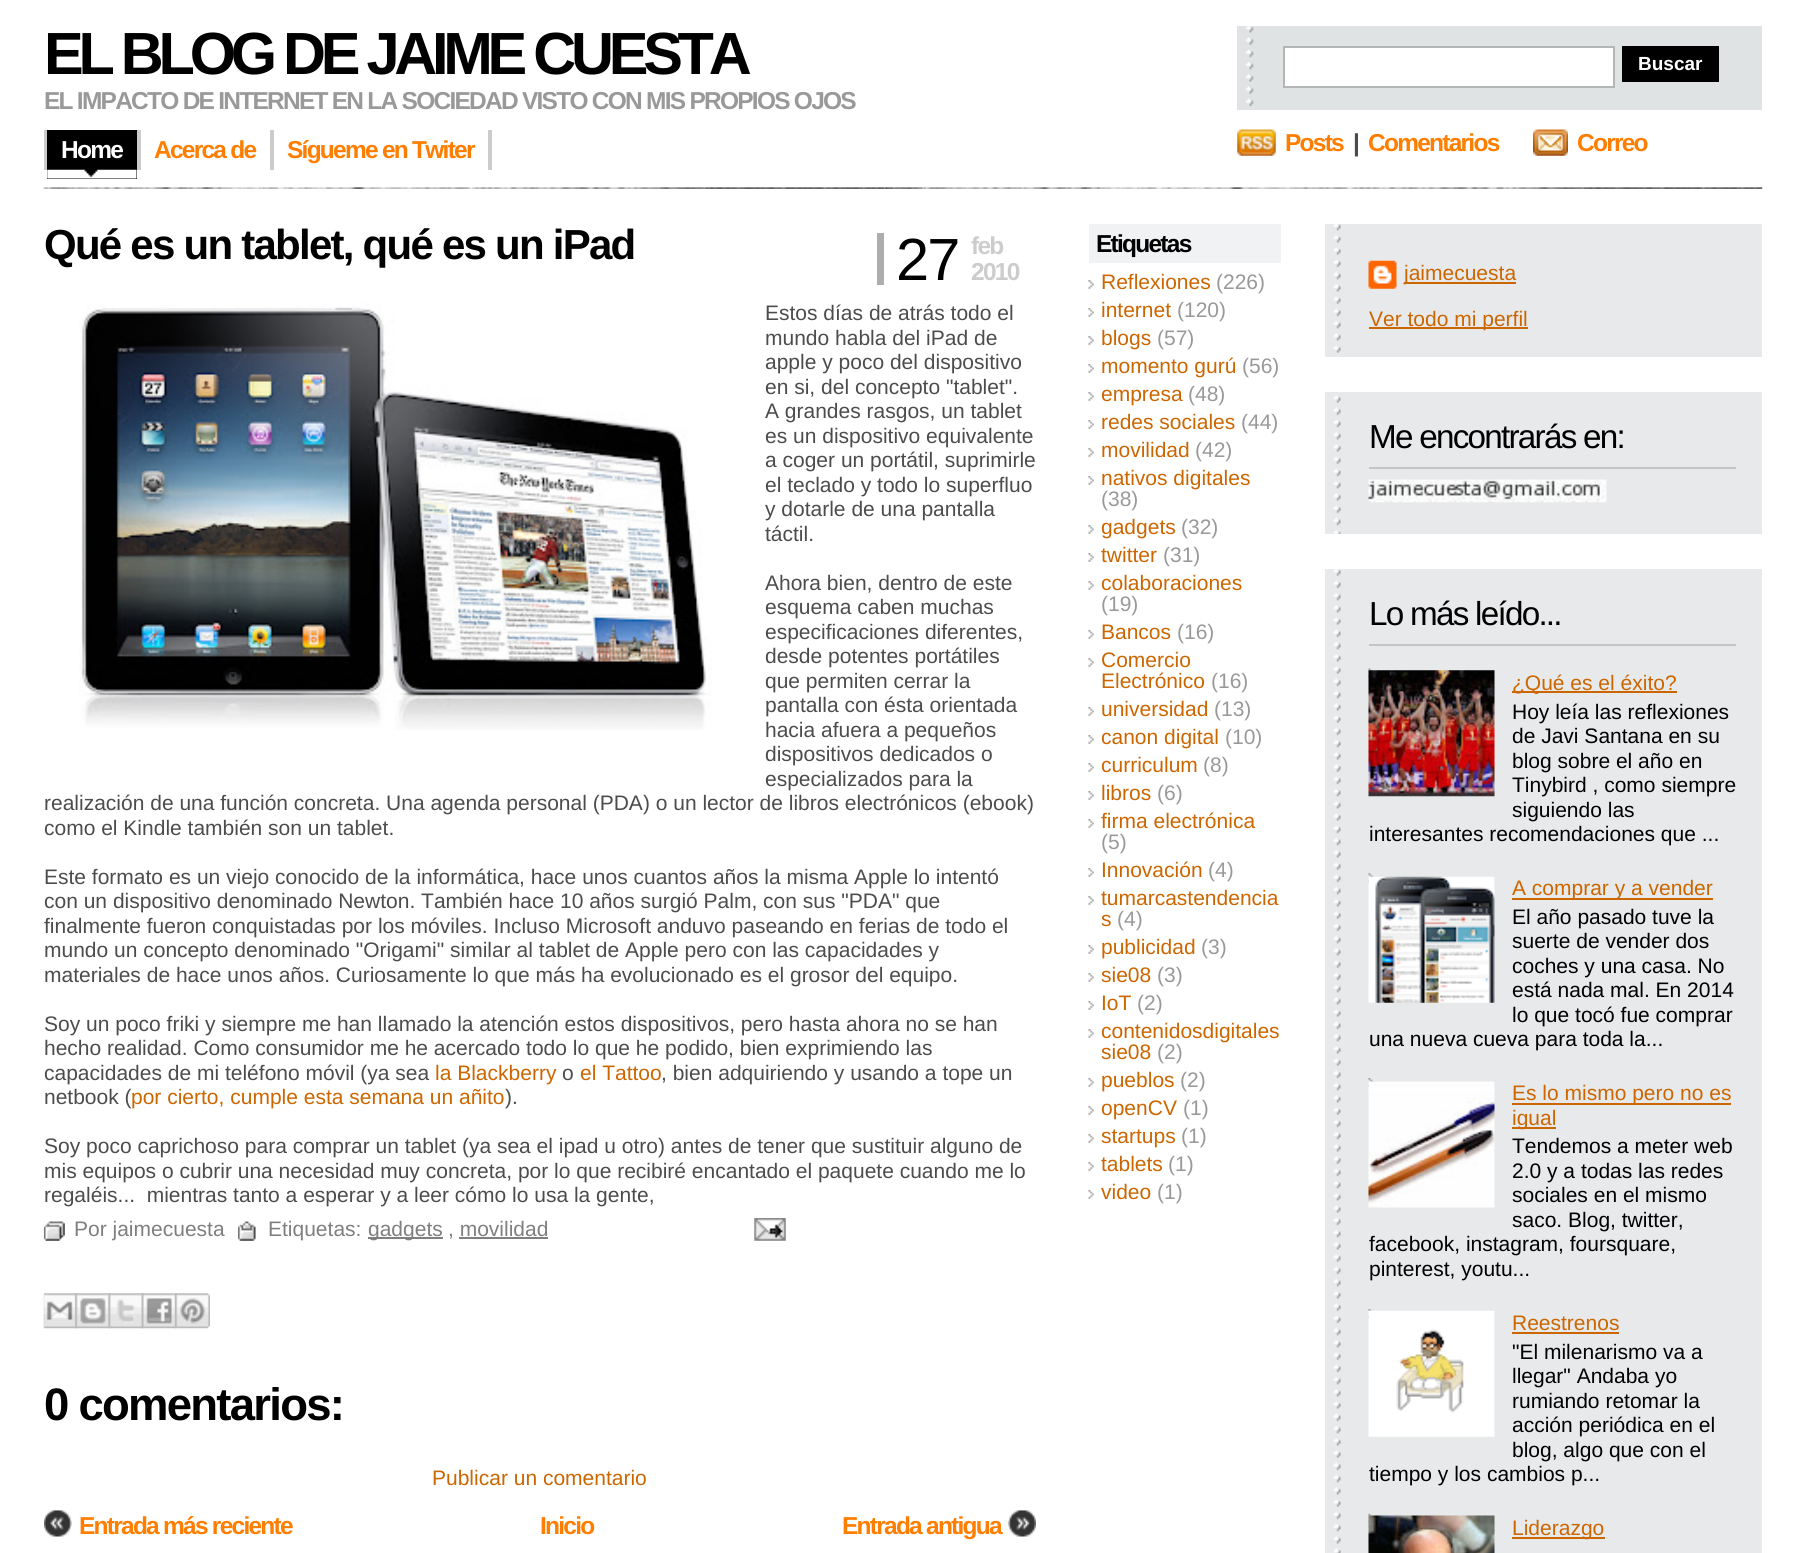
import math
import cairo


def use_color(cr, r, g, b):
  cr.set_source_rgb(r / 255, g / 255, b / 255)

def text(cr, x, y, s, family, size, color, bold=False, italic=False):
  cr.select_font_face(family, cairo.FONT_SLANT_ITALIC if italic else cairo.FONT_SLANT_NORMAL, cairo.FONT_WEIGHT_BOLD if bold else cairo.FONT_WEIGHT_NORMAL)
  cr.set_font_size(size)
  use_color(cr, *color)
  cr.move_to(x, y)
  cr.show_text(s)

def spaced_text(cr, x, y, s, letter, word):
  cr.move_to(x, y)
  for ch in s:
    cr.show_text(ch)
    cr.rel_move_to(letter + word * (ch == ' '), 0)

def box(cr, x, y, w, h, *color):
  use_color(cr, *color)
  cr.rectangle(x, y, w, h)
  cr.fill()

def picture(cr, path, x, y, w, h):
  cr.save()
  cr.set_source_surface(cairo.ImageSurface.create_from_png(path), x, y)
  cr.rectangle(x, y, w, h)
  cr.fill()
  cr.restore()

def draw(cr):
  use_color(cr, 255, 255, 255)
  cr.paint()
  box(cr, 1237, 26, 525, 84, 224, 227, 228)
  picture(cr, "img_01.png", 1245, 26, 9, 81)
  use_color(cr, 255, 255, 255)
  cr.rectangle(1284, 47, 330, 40)
  cr.fill_preserve()
  use_color(cr, 179, 182, 183)
  cr.stroke()
  box(cr, 1622, 46, 97, 36, 0, 0, 0)
  box(cr, 44, 130, 3, 40, 204, 204, 204)
  box(cr, 137, 130, 4, 40, 204, 204, 204)
  box(cr, 47, 130, 90, 49, 0, 0, 0)
  picture(cr, "img_02.png", 47, 169, 90, 10)
  box(cr, 270, 130, 4, 40, 204, 204, 204)
  box(cr, 488, 130, 4, 40, 204, 204, 204)
  picture(cr, "img_03.png", 1237, 129, 39, 27)
  picture(cr, "img_04.png", 1533, 129, 35, 27)
  picture(cr, "img_05.png", 43, 187, 1720, 2)
  box(cr, 877, 233, 7, 52, 173, 173, 173)
  picture(cr, "img_06.png", 79, 303, 633, 427)
  picture(cr, "img_07.png", 43, 1221, 22, 20)
  picture(cr, "img_08.png", 238, 1221, 18, 20)
  box(cr, 368, 1237, 75, 2, 127, 127, 127)
  box(cr, 459, 1237, 89, 2, 127, 127, 127)
  picture(cr, "img_09.png", 754, 1218, 32, 23)
  picture(cr, "img_10.png", 43, 1293, 34, 36)
  picture(cr, "img_11.png", 75, 1293, 36, 36)
  picture(cr, "img_12.png", 108, 1293, 36, 36)
  picture(cr, "img_13.png", 141, 1293, 36, 36)
  picture(cr, "img_14.png", 175, 1293, 35, 36)
  picture(cr, "img_15.png", 44, 1510, 28, 27)
  picture(cr, "img_16.png", 1008, 1510, 28, 27)
  box(cr, 1089, 224, 192, 39, 240, 242, 243)
  picture(cr, "img_17.png", 1088, 280, 6, 9)
  picture(cr, "img_17.png", 1088, 308, 6, 9)
  picture(cr, "img_17.png", 1088, 336, 6, 9)
  picture(cr, "img_17.png", 1088, 364, 6, 9)
  picture(cr, "img_17.png", 1088, 392, 6, 9)
  picture(cr, "img_17.png", 1088, 420, 6, 9)
  picture(cr, "img_17.png", 1088, 448, 6, 9)
  picture(cr, "img_17.png", 1088, 476, 6, 9)
  picture(cr, "img_17.png", 1088, 525, 6, 9)
  picture(cr, "img_17.png", 1088, 553, 6, 9)
  picture(cr, "img_17.png", 1088, 581, 6, 9)
  picture(cr, "img_17.png", 1088, 630, 6, 9)
  picture(cr, "img_17.png", 1088, 658, 6, 9)
  picture(cr, "img_17.png", 1088, 707, 6, 9)
  picture(cr, "img_17.png", 1088, 735, 6, 9)
  picture(cr, "img_17.png", 1088, 763, 6, 9)
  picture(cr, "img_17.png", 1088, 791, 6, 9)
  picture(cr, "img_17.png", 1088, 819, 6, 9)
  picture(cr, "img_17.png", 1088, 868, 6, 9)
  picture(cr, "img_17.png", 1088, 896, 6, 9)
  picture(cr, "img_17.png", 1088, 945, 6, 9)
  picture(cr, "img_17.png", 1088, 973, 6, 9)
  picture(cr, "img_17.png", 1088, 1001, 6, 9)
  picture(cr, "img_17.png", 1088, 1029, 6, 9)
  picture(cr, "img_17.png", 1088, 1078, 6, 9)
  picture(cr, "img_17.png", 1088, 1106, 6, 9)
  picture(cr, "img_17.png", 1088, 1134, 6, 9)
  picture(cr, "img_17.png", 1088, 1162, 6, 9)
  picture(cr, "img_17.png", 1088, 1190, 6, 9)
  box(cr, 1325, 224, 437, 133, 231, 233, 234)
  picture(cr, "img_18.png", 1333, 224, 8, 129)
  picture(cr, "img_19.png", 1368, 260, 29, 29)
  box(cr, 1404, 282, 112, 2, 204, 102, 0)
  box(cr, 1369, 327, 159, 2, 204, 102, 0)
  box(cr, 1325, 392, 437, 142, 231, 233, 234)
  picture(cr, "img_20.png", 1333, 395, 8, 139)
  box(cr, 1369, 467, 367, 2, 195, 196, 197)
  picture(cr, "img_21.png", 1368, 479, 239, 24)
  box(cr, 1325, 569, 437, 984, 231, 233, 234)
  picture(cr, "img_22.png", 1333, 569, 8, 984)
  box(cr, 1369, 644, 367, 2, 195, 196, 197)
  picture(cr, "img_23.png", 1368, 668, 5, 10)
  picture(cr, "img_24.png", 1368, 670, 127, 127)
  box(cr, 1512, 691, 165, 2, 204, 102, 0)
  picture(cr, "img_25.png", 1368, 873, 6, 9)
  picture(cr, "img_26.png", 1368, 876, 127, 127)
  box(cr, 1512, 898, 201, 2, 204, 102, 0)
  picture(cr, "img_27.png", 1368, 1078, 6, 9)
  picture(cr, "img_28.png", 1368, 1081, 127, 127)
  box(cr, 1512, 1103, 219, 2, 204, 102, 0)
  box(cr, 1512, 1127, 44, 2, 204, 102, 0)
  picture(cr, "img_29.png", 1368, 1309, 5, 9)
  picture(cr, "img_30.png", 1368, 1310, 127, 127)
  box(cr, 1512, 1332, 107, 2, 204, 102, 0)
  picture(cr, "img_31.png", 1368, 1513, 5, 10)
  picture(cr, "img_32.png", 1368, 1515, 127, 38)
  box(cr, 1512, 1537, 93, 2, 204, 102, 0)
  cr.select_font_face("Liberation Sans", cairo.FONT_SLANT_NORMAL, cairo.FONT_WEIGHT_BOLD)
  cr.set_font_size(59.5)
  use_color(cr, 0, 0, 0)
  spaced_text(cr, 44, 74, "EL BLOG DE JAIME CUESTA", -5.25, 0)
  cr.set_font_size(24.5)
  use_color(cr, 153, 153, 153)
  spaced_text(cr, 44, 109, "EL IMPACTO DE INTERNET EN LA SOCIEDAD VISTO CON MIS PROPIOS OJOS", -1.75, 0)
  text(cr, 1638, 70, "Buscar", "Liberation Sans", 19, (255, 255, 255), bold=True)
  cr.set_font_size(24.5)
  spaced_text(cr, 61, 158, "Home", -1.75, 0)
  use_color(cr, 255, 126, 0)
  spaced_text(cr, 154, 158, "Acerca de", -1.75, 0)
  spaced_text(cr, 287, 158, "Sígueme en Twiter", -1.75, 0)
  spaced_text(cr, 1285, 151, "Posts", -1.75, 0)
  use_color(cr, 76, 76, 76)
  spaced_text(cr, 1353, 151, "|", -1.75, 0)
  use_color(cr, 255, 126, 0)
  spaced_text(cr, 1368, 151, "Comentarios", -1.75, 0)
  spaced_text(cr, 1577, 151, "Correo", -1.75, 0)
  cr.set_font_size(42)
  use_color(cr, 0, 0, 0)
  spaced_text(cr, 44, 259, "Qué es un tablet, qué es un iPad", -1.75, 0)
  cr.select_font_face("Liberation Sans")
  cr.set_font_size(59.5)
  spaced_text(cr, 896, 280, "27", -1.75, 0)
  cr.select_font_face("Liberation Sans", cairo.FONT_SLANT_NORMAL, cairo.FONT_WEIGHT_BOLD)
  cr.set_font_size(24.5)
  use_color(cr, 204, 204, 204)
  spaced_text(cr, 971, 254, "feb", -1.75, 0)
  spaced_text(cr, 971, 280, "2010", -1.75, 0)
  text(cr, 765, 320, "Estos días de atrás todo el", "Liberation Sans", 21, (76, 76, 76))
  text(cr, 765, 345, "mundo habla del iPad de", "Liberation Sans", 21, (76, 76, 76))
  text(cr, 765, 369, "apple y poco del dispositivo", "Liberation Sans", 21, (76, 76, 76))
  text(cr, 765, 394, "en si, del concepto \"tablet\".", "Liberation Sans", 21, (76, 76, 76))
  text(cr, 765, 418, "A grandes rasgos, un tablet", "Liberation Sans", 21, (76, 76, 76))
  text(cr, 765, 443, "es un dispositivo equivalente", "Liberation Sans", 21, (76, 76, 76))
  text(cr, 765, 467, "a coger un portátil, suprimirle", "Liberation Sans", 21, (76, 76, 76))
  text(cr, 765, 492, "el teclado y todo lo superfluo", "Liberation Sans", 21, (76, 76, 76))
  text(cr, 765, 516, "y dotarle de una pantalla", "Liberation Sans", 21, (76, 76, 76))
  text(cr, 765, 541, "táctil.", "Liberation Sans", 21, (76, 76, 76))
  text(cr, 765, 590, "Ahora bien, dentro de este", "Liberation Sans", 21, (76, 76, 76))
  text(cr, 765, 614, "esquema caben muchas", "Liberation Sans", 21, (76, 76, 76))
  text(cr, 765, 639, "especificaciones diferentes,", "Liberation Sans", 21, (76, 76, 76))
  text(cr, 765, 663, "desde potentes portátiles", "Liberation Sans", 21, (76, 76, 76))
  text(cr, 765, 688, "que permiten cerrar la", "Liberation Sans", 21, (76, 76, 76))
  text(cr, 765, 712, "pantalla con ésta orientada", "Liberation Sans", 21, (76, 76, 76))
  text(cr, 765, 737, "hacia afuera a pequeños", "Liberation Sans", 21, (76, 76, 76))
  text(cr, 765, 761, "dispositivos dedicados o", "Liberation Sans", 21, (76, 76, 76))
  text(cr, 765, 786, "especializados para la", "Liberation Sans", 21, (76, 76, 76))
  text(cr, 44, 810, "realización de una función concreta. Una agenda personal (PDA) o un lector de libros electrónicos (ebook)", "Liberation Sans", 21, (76, 76, 76))
  text(cr, 44, 835, "como el Kindle también son un tablet.", "Liberation Sans", 21, (76, 76, 76))
  text(cr, 44, 884, "Este formato es un viejo conocido de la informática, hace unos cuantos años la misma Apple lo intentó", "Liberation Sans", 21, (76, 76, 76))
  text(cr, 44, 908, "con un dispositivo denominado Newton. También hace 10 años surgió Palm, con sus \"PDA\" que", "Liberation Sans", 21, (76, 76, 76))
  text(cr, 44, 933, "finalmente fueron conquistadas por los móviles. Incluso Microsoft anduvo paseando en ferias de todo el", "Liberation Sans", 21, (76, 76, 76))
  text(cr, 44, 957, "mundo un concepto denominado \"Origami\" similar al tablet de Apple pero con las capacidades y", "Liberation Sans", 21, (76, 76, 76))
  text(cr, 44, 982, "materiales de hace unos años. Curiosamente lo que más ha evolucionado es el grosor del equipo.", "Liberation Sans", 21, (76, 76, 76))
  text(cr, 44, 1031, "Soy un poco friki y siempre me han llamado la atención estos dispositivos, pero hasta ahora no se han", "Liberation Sans", 21, (76, 76, 76))
  text(cr, 44, 1055, "hecho realidad. Como consumidor me he acercado todo lo que he podido, bien exprimiendo las", "Liberation Sans", 21, (76, 76, 76))
  text(cr, 44, 1080, "capacidades de mi teléfono móvil (ya sea", "Liberation Sans", 21, (76, 76, 76))
  text(cr, 435, 1080, "la Blackberry", "Liberation Sans", 21, (204, 102, 0))
  text(cr, 562, 1080, "o", "Liberation Sans", 21, (76, 76, 76))
  text(cr, 580, 1080, "el Tattoo", "Liberation Sans", 21, (204, 102, 0))
  text(cr, 661, 1080, ", bien adquiriendo y usando a tope un", "Liberation Sans", 21, (76, 76, 76))
  text(cr, 44, 1104, "netbook (", "Liberation Sans", 21, (76, 76, 76))
  text(cr, 131, 1104, "por cierto, cumple esta semana un añito", "Liberation Sans", 21, (204, 102, 0))
  text(cr, 505, 1104, ").", "Liberation Sans", 21, (76, 76, 76))
  text(cr, 44, 1153, "Soy poco caprichoso para comprar un tablet (ya sea el ipad u otro) antes de tener que sustituir alguno de", "Liberation Sans", 21, (76, 76, 76))
  text(cr, 44, 1178, "mis equipos o cubrir una necesidad muy concreta, por lo que recibiré encantado el paquete cuando me lo", "Liberation Sans", 21, (76, 76, 76))
  text(cr, 44, 1202, "regaléis...  mientras tanto a esperar y a leer cómo lo usa la gente,", "Liberation Sans", 21, (76, 76, 76))
  text(cr, 74, 1236, "Por jaimecuesta", "Liberation Sans", 21, (127, 127, 127))
  text(cr, 268, 1236, "Etiquetas:", "Liberation Sans", 21, (127, 127, 127))
  text(cr, 368, 1236, "gadgets", "Liberation Sans", 21, (127, 127, 127))
  text(cr, 448, 1236, ", movilidad", "Liberation Sans", 21, (127, 127, 127))
  cr.select_font_face("Liberation Sans", cairo.FONT_SLANT_NORMAL, cairo.FONT_WEIGHT_BOLD)
  cr.set_font_size(45.5)
  use_color(cr, 0, 0, 0)
  spaced_text(cr, 44, 1420, "0 comentarios:", -1.75, 0)
  text(cr, 432, 1485, "Publicar un comentario", "Liberation Sans", 21, (204, 102, 0))
  cr.select_font_face("Liberation Sans", cairo.FONT_SLANT_NORMAL, cairo.FONT_WEIGHT_BOLD)
  cr.set_font_size(24.5)
  use_color(cr, 255, 126, 0)
  spaced_text(cr, 79, 1534, "Entrada más reciente", -1.75, 0)
  spaced_text(cr, 540, 1534, "Inicio", -1.75, 0)
  spaced_text(cr, 842, 1534, "Entrada antigua", -1.75, 0)
  use_color(cr, 0, 0, 0)
  spaced_text(cr, 1096, 252, "Etiquetas", -1.75, 0)
  text(cr, 1101, 289, "Reflexiones", "Liberation Sans", 21, (204, 102, 0))
  text(cr, 1216, 289, "(226)", "Liberation Sans", 21, (153, 153, 153))
  text(cr, 1101, 317, "internet", "Liberation Sans", 21, (204, 102, 0))
  text(cr, 1177, 317, "(120)", "Liberation Sans", 21, (153, 153, 153))
  text(cr, 1101, 345, "blogs", "Liberation Sans", 21, (204, 102, 0))
  text(cr, 1157, 345, "(57)", "Liberation Sans", 21, (153, 153, 153))
  text(cr, 1101, 373, "momento gurú", "Liberation Sans", 21, (204, 102, 0))
  text(cr, 1242, 373, "(56)", "Liberation Sans", 21, (153, 153, 153))
  text(cr, 1101, 401, "empresa", "Liberation Sans", 21, (204, 102, 0))
  text(cr, 1188, 401, "(48)", "Liberation Sans", 21, (153, 153, 153))
  text(cr, 1101, 429, "redes sociales", "Liberation Sans", 21, (204, 102, 0))
  text(cr, 1241, 429, "(44)", "Liberation Sans", 21, (153, 153, 153))
  text(cr, 1101, 457, "movilidad", "Liberation Sans", 21, (204, 102, 0))
  text(cr, 1195, 457, "(42)", "Liberation Sans", 21, (153, 153, 153))
  text(cr, 1101, 485, "nativos digitales", "Liberation Sans", 21, (204, 102, 0))
  text(cr, 1101, 506, "(38)", "Liberation Sans", 21, (153, 153, 153))
  text(cr, 1101, 534, "gadgets", "Liberation Sans", 21, (204, 102, 0))
  text(cr, 1181, 534, "(32)", "Liberation Sans", 21, (153, 153, 153))
  text(cr, 1101, 562, "twitter", "Liberation Sans", 21, (204, 102, 0))
  text(cr, 1163, 562, "(31)", "Liberation Sans", 21, (153, 153, 153))
  text(cr, 1101, 590, "colaboraciones", "Liberation Sans", 21, (204, 102, 0))
  text(cr, 1101, 611, "(19)", "Liberation Sans", 21, (153, 153, 153))
  text(cr, 1101, 639, "Bancos", "Liberation Sans", 21, (204, 102, 0))
  text(cr, 1177, 639, "(16)", "Liberation Sans", 21, (153, 153, 153))
  text(cr, 1101, 667, "Comercio", "Liberation Sans", 21, (204, 102, 0))
  text(cr, 1101, 688, "Electrónico", "Liberation Sans", 21, (204, 102, 0))
  text(cr, 1211, 688, "(16)", "Liberation Sans", 21, (153, 153, 153))
  text(cr, 1101, 716, "universidad", "Liberation Sans", 21, (204, 102, 0))
  text(cr, 1214, 716, "(13)", "Liberation Sans", 21, (153, 153, 153))
  text(cr, 1101, 744, "canon digital", "Liberation Sans", 21, (204, 102, 0))
  text(cr, 1225, 744, "(10)", "Liberation Sans", 21, (153, 153, 153))
  text(cr, 1101, 772, "curriculum", "Liberation Sans", 21, (204, 102, 0))
  text(cr, 1203, 772, "(8)", "Liberation Sans", 21, (153, 153, 153))
  text(cr, 1101, 800, "libros", "Liberation Sans", 21, (204, 102, 0))
  text(cr, 1157, 800, "(6)", "Liberation Sans", 21, (153, 153, 153))
  text(cr, 1101, 828, "firma electrónica", "Liberation Sans", 21, (204, 102, 0))
  text(cr, 1101, 849, "(5)", "Liberation Sans", 21, (153, 153, 153))
  text(cr, 1101, 877, "Innovación", "Liberation Sans", 21, (204, 102, 0))
  text(cr, 1208, 877, "(4)", "Liberation Sans", 21, (153, 153, 153))
  text(cr, 1101, 905, "tumarcastendencia", "Liberation Sans", 21, (204, 102, 0))
  text(cr, 1101, 926, "s", "Liberation Sans", 21, (204, 102, 0))
  text(cr, 1117, 926, "(4)", "Liberation Sans", 21, (153, 153, 153))
  text(cr, 1101, 954, "publicidad", "Liberation Sans", 21, (204, 102, 0))
  text(cr, 1201, 954, "(3)", "Liberation Sans", 21, (153, 153, 153))
  text(cr, 1101, 982, "sie08", "Liberation Sans", 21, (204, 102, 0))
  text(cr, 1157, 982, "(3)", "Liberation Sans", 21, (153, 153, 153))
  text(cr, 1101, 1010, "IoT", "Liberation Sans", 21, (204, 102, 0))
  text(cr, 1137, 1010, "(2)", "Liberation Sans", 21, (153, 153, 153))
  text(cr, 1101, 1038, "contenidosdigitales", "Liberation Sans", 21, (204, 102, 0))
  text(cr, 1101, 1059, "sie08", "Liberation Sans", 21, (204, 102, 0))
  text(cr, 1157, 1059, "(2)", "Liberation Sans", 21, (153, 153, 153))
  text(cr, 1101, 1087, "pueblos", "Liberation Sans", 21, (204, 102, 0))
  text(cr, 1180, 1087, "(2)", "Liberation Sans", 21, (153, 153, 153))
  text(cr, 1101, 1115, "openCV", "Liberation Sans", 21, (204, 102, 0))
  text(cr, 1183, 1115, "(1)", "Liberation Sans", 21, (153, 153, 153))
  text(cr, 1101, 1143, "startups", "Liberation Sans", 21, (204, 102, 0))
  text(cr, 1181, 1143, "(1)", "Liberation Sans", 21, (153, 153, 153))
  text(cr, 1101, 1171, "tablets", "Liberation Sans", 21, (204, 102, 0))
  text(cr, 1168, 1171, "(1)", "Liberation Sans", 21, (153, 153, 153))
  text(cr, 1101, 1199, "video", "Liberation Sans", 21, (204, 102, 0))
  text(cr, 1157, 1199, "(1)", "Liberation Sans", 21, (153, 153, 153))
  text(cr, 1404, 280, "jaimecuesta", "Liberation Sans", 21, (204, 102, 0))
  text(cr, 1369, 326, "Ver todo mi perfil", "Liberation Sans", 21, (204, 102, 0))
  cr.set_font_size(33.25)
  use_color(cr, 0, 0, 0)
  spaced_text(cr, 1369, 448, "Me encontrarás en:", -1.75, 0)
  spaced_text(cr, 1369, 625, "Lo más leído...", -1.75, 0)
  text(cr, 1512, 690, "¿Qué es el éxito?", "Liberation Sans", 21, (204, 102, 0))
  text(cr, 1512, 719, "Hoy leía las reflexiones", "Liberation Sans", 21, (0, 0, 0))
  text(cr, 1512, 743, "de Javi Santana en su", "Liberation Sans", 21, (0, 0, 0))
  text(cr, 1512, 768, "blog sobre el año en", "Liberation Sans", 21, (0, 0, 0))
  text(cr, 1512, 792, "Tinybird , como siempre", "Liberation Sans", 21, (0, 0, 0))
  text(cr, 1512, 817, "siguiendo las", "Liberation Sans", 21, (0, 0, 0))
  text(cr, 1369, 841, "interesantes recomendaciones que ...", "Liberation Sans", 21, (0, 0, 0))
  text(cr, 1512, 895, "A comprar y a vender", "Liberation Sans", 21, (204, 102, 0))
  text(cr, 1512, 924, "El año pasado tuve la", "Liberation Sans", 21, (0, 0, 0))
  text(cr, 1512, 948, "suerte de vender dos", "Liberation Sans", 21, (0, 0, 0))
  text(cr, 1512, 973, "coches y una casa. No", "Liberation Sans", 21, (0, 0, 0))
  text(cr, 1512, 997, "está nada mal. En 2014", "Liberation Sans", 21, (0, 0, 0))
  text(cr, 1512, 1022, "lo que tocó fue comprar", "Liberation Sans", 21, (0, 0, 0))
  text(cr, 1369, 1046, "una nueva cueva para toda la...", "Liberation Sans", 21, (0, 0, 0))
  text(cr, 1512, 1100, "Es lo mismo pero no es", "Liberation Sans", 21, (204, 102, 0))
  text(cr, 1512, 1125, "igual", "Liberation Sans", 21, (204, 102, 0))
  text(cr, 1512, 1153, "Tendemos a meter web", "Liberation Sans", 21, (0, 0, 0))
  text(cr, 1512, 1178, "2.0 y a todas las redes", "Liberation Sans", 21, (0, 0, 0))
  text(cr, 1512, 1202, "sociales en el mismo", "Liberation Sans", 21, (0, 0, 0))
  text(cr, 1512, 1227, "saco. Blog, twitter,", "Liberation Sans", 21, (0, 0, 0))
  text(cr, 1369, 1251, "facebook, instagram, foursquare,", "Liberation Sans", 21, (0, 0, 0))
  text(cr, 1369, 1276, "pinterest, youtu...", "Liberation Sans", 21, (0, 0, 0))
  text(cr, 1512, 1330, "Reestrenos", "Liberation Sans", 21, (204, 102, 0))
  text(cr, 1512, 1359, "\"El milenarismo va a", "Liberation Sans", 21, (0, 0, 0))
  text(cr, 1512, 1383, "llegar\" Andaba yo", "Liberation Sans", 21, (0, 0, 0))
  text(cr, 1512, 1408, "rumiando retomar la", "Liberation Sans", 21, (0, 0, 0))
  text(cr, 1512, 1432, "acción periódica en el", "Liberation Sans", 21, (0, 0, 0))
  text(cr, 1512, 1457, "blog, algo que con el", "Liberation Sans", 21, (0, 0, 0))
  text(cr, 1369, 1481, "tiempo y los cambios p...", "Liberation Sans", 21, (0, 0, 0))
  text(cr, 1512, 1535, "Liderazgo", "Liberation Sans", 21, (204, 102, 0))


surface = cairo.ImageSurface(cairo.FORMAT_RGB24, 1806, 1553)
cr = cairo.Context(surface)
options = cairo.FontOptions()
options.set_hint_metrics(cairo.HINT_METRICS_OFF)
options.set_hint_style(cairo.HINT_STYLE_NONE)
cr.set_font_options(options)
cr.set_miter_limit(4)
draw(cr)
surface.write_to_png("out.png")
